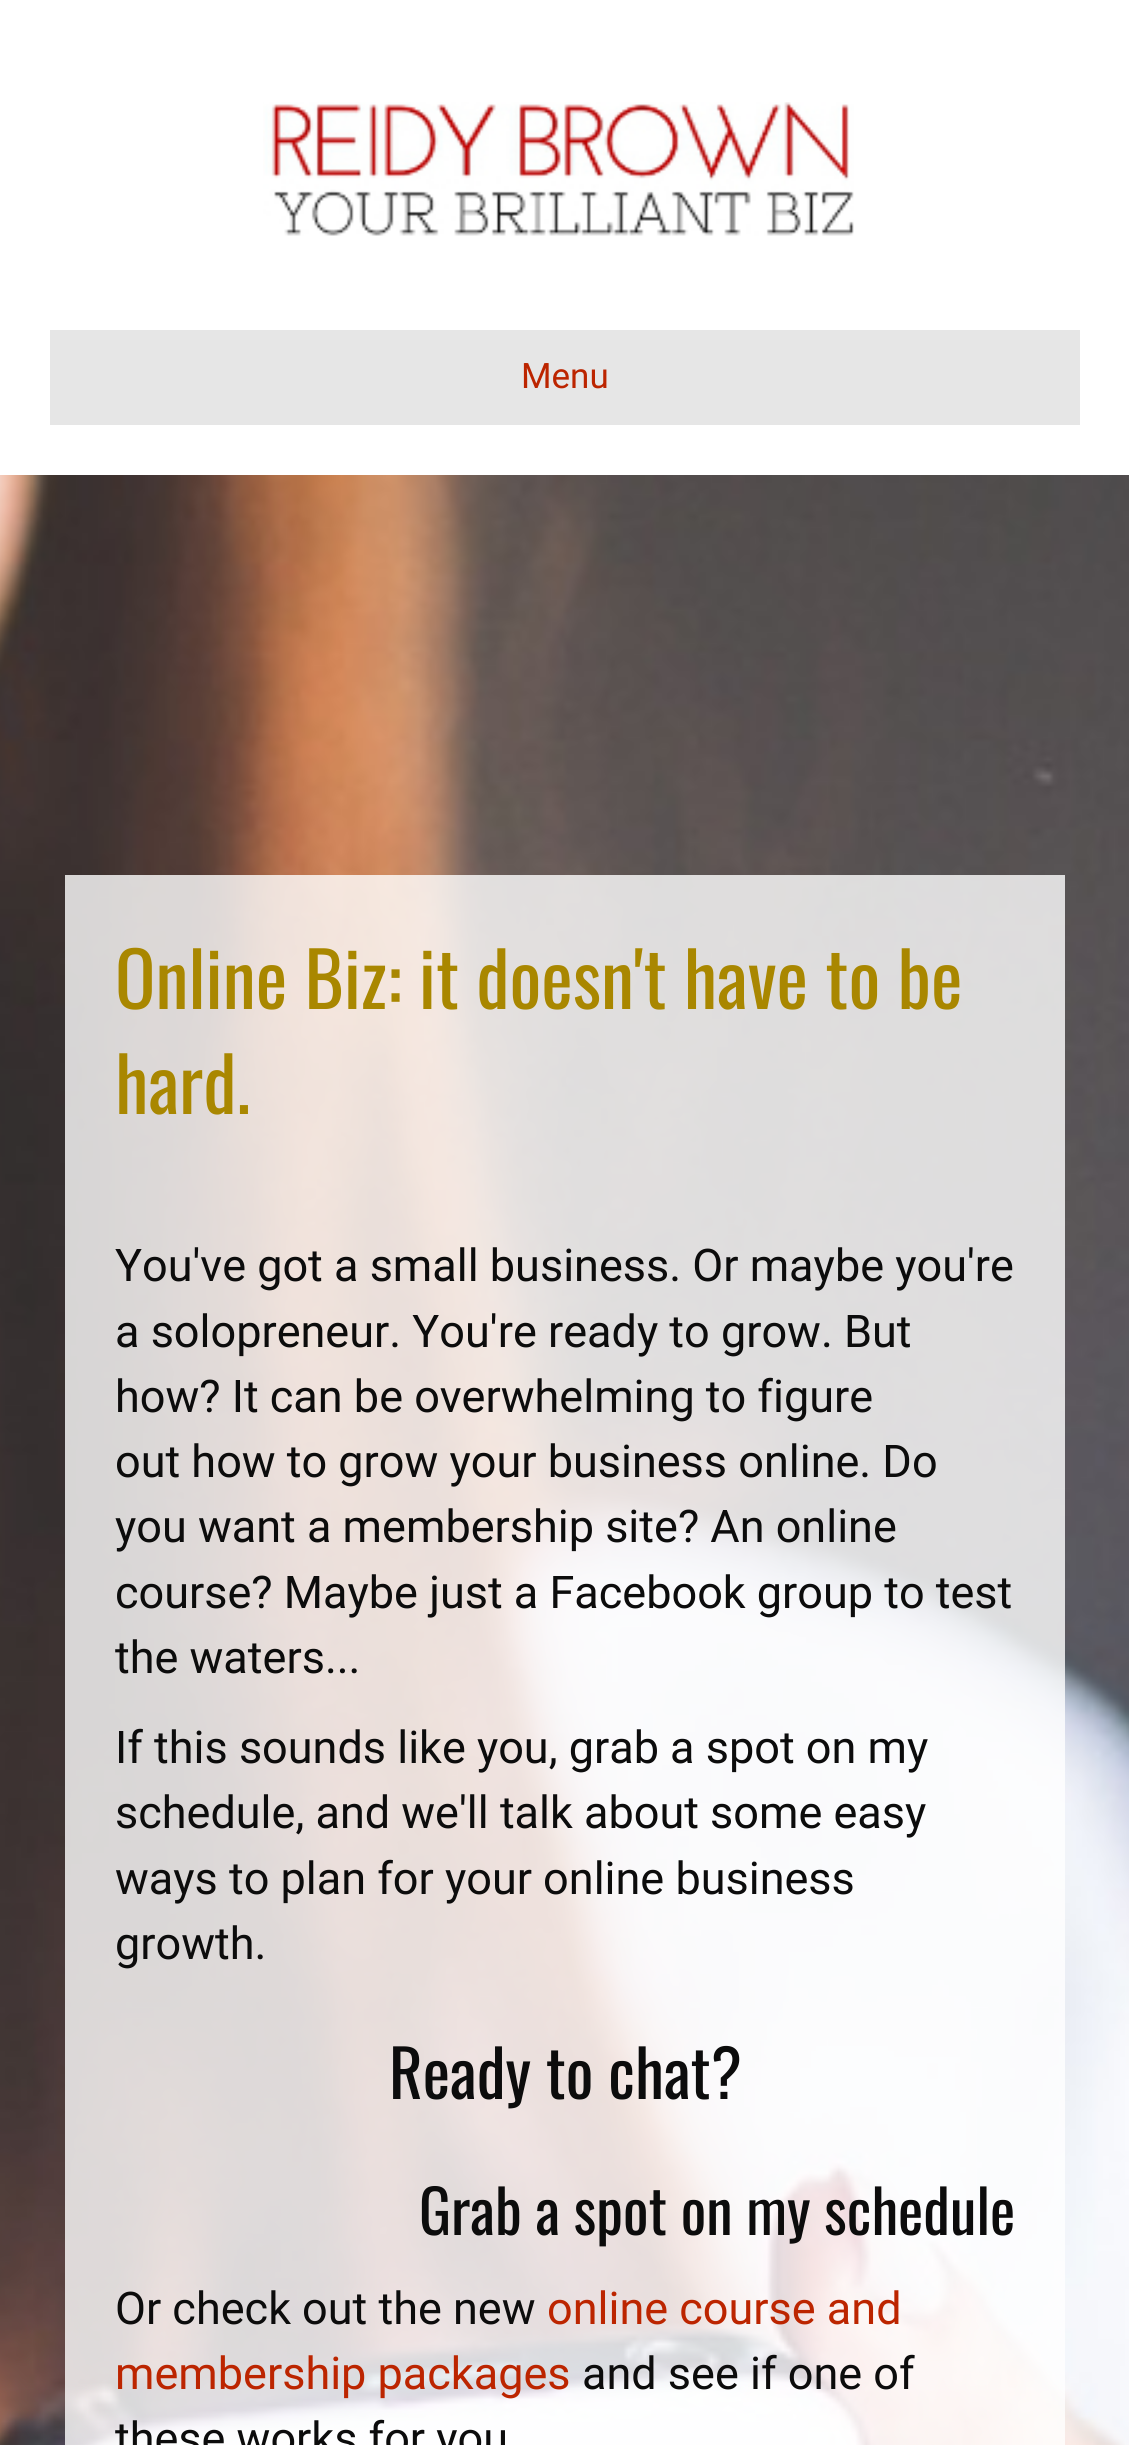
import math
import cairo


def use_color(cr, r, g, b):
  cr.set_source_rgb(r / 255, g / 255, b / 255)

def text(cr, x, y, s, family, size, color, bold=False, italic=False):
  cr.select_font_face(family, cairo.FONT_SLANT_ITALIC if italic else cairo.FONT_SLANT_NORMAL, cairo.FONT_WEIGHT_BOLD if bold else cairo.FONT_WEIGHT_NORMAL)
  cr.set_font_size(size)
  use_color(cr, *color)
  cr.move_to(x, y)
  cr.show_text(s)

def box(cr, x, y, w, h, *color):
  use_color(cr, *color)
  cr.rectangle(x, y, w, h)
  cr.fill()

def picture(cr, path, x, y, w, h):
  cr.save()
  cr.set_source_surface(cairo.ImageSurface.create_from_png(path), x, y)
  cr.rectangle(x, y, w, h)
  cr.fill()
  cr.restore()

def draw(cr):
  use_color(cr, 255, 255, 255)
  cr.paint()
  picture(cr, "img_01.png", 263, 102, 591, 134)
  box(cr, 50, 330, 1030, 95, 230, 230, 230)
  picture(cr, "img_02.png", 0, 475, 1129, 1970)
  cr.set_source_rgba(1, 1, 1, 0.8)
  cr.rectangle(65, 875, 1000, 1570)
  cr.fill()
  text(cr, 521, 388, "Menu", "Roboto", 35, (188, 37, 0))
  text(cr, 115, 1009, "Online Biz: it doesn't have to be", "Oswald", 75, (169, 135, 0))
  text(cr, 115, 1114, "hard.", "Oswald", 75, (169, 135, 0))
  text(cr, 115, 1281, "You've got a small business. Or maybe you're", "Roboto", 45, (12, 12, 12))
  text(cr, 115, 1347, "a solopreneur. You're ready to grow. But", "Roboto", 45, (12, 12, 12))
  text(cr, 115, 1412, "how? It can be overwhelming to figure", "Roboto", 45, (12, 12, 12))
  text(cr, 115, 1477, "out how to grow your business online. Do", "Roboto", 45, (12, 12, 12))
  text(cr, 115, 1542, "you want a membership site? An online", "Roboto", 45, (12, 12, 12))
  text(cr, 115, 1608, "course? Maybe just a Facebook group to test", "Roboto", 45, (12, 12, 12))
  text(cr, 115, 1673, "the waters...", "Roboto", 45, (12, 12, 12))
  text(cr, 115, 1763, "If this sounds like you, grab a spot on my", "Roboto", 45, (12, 12, 12))
  text(cr, 115, 1828, "schedule, and we'll talk about some easy", "Roboto", 45, (12, 12, 12))
  text(cr, 115, 1894, "ways to plan for your online business", "Roboto", 45, (12, 12, 12))
  text(cr, 115, 1959, "growth.", "Roboto", 45, (12, 12, 12))
  text(cr, 389, 2099, "Ready to chat?", "Oswald", 65, (12, 12, 12))
  text(cr, 419, 2235, "Grab a spot on my schedule", "Oswald", 60, (12, 12, 12))
  text(cr, 115, 2324, "Or check out the new", "Roboto", 45, (12, 12, 12))
  text(cr, 547, 2324, "online course and", "Roboto", 45, (188, 37, 0))
  text(cr, 115, 2389, "membership packages", "Roboto", 45, (188, 37, 0))
  text(cr, 582, 2389, "and see if one of", "Roboto", 45, (12, 12, 12))
  text(cr, 115, 2454, "these works for you", "Roboto", 45, (12, 12, 12))


surface = cairo.ImageSurface(cairo.FORMAT_RGB24, 1129, 2445)
cr = cairo.Context(surface)
options = cairo.FontOptions()
options.set_hint_metrics(cairo.HINT_METRICS_OFF)
options.set_hint_style(cairo.HINT_STYLE_NONE)
cr.set_font_options(options)
cr.set_miter_limit(4)
draw(cr)
surface.write_to_png("out.png")
